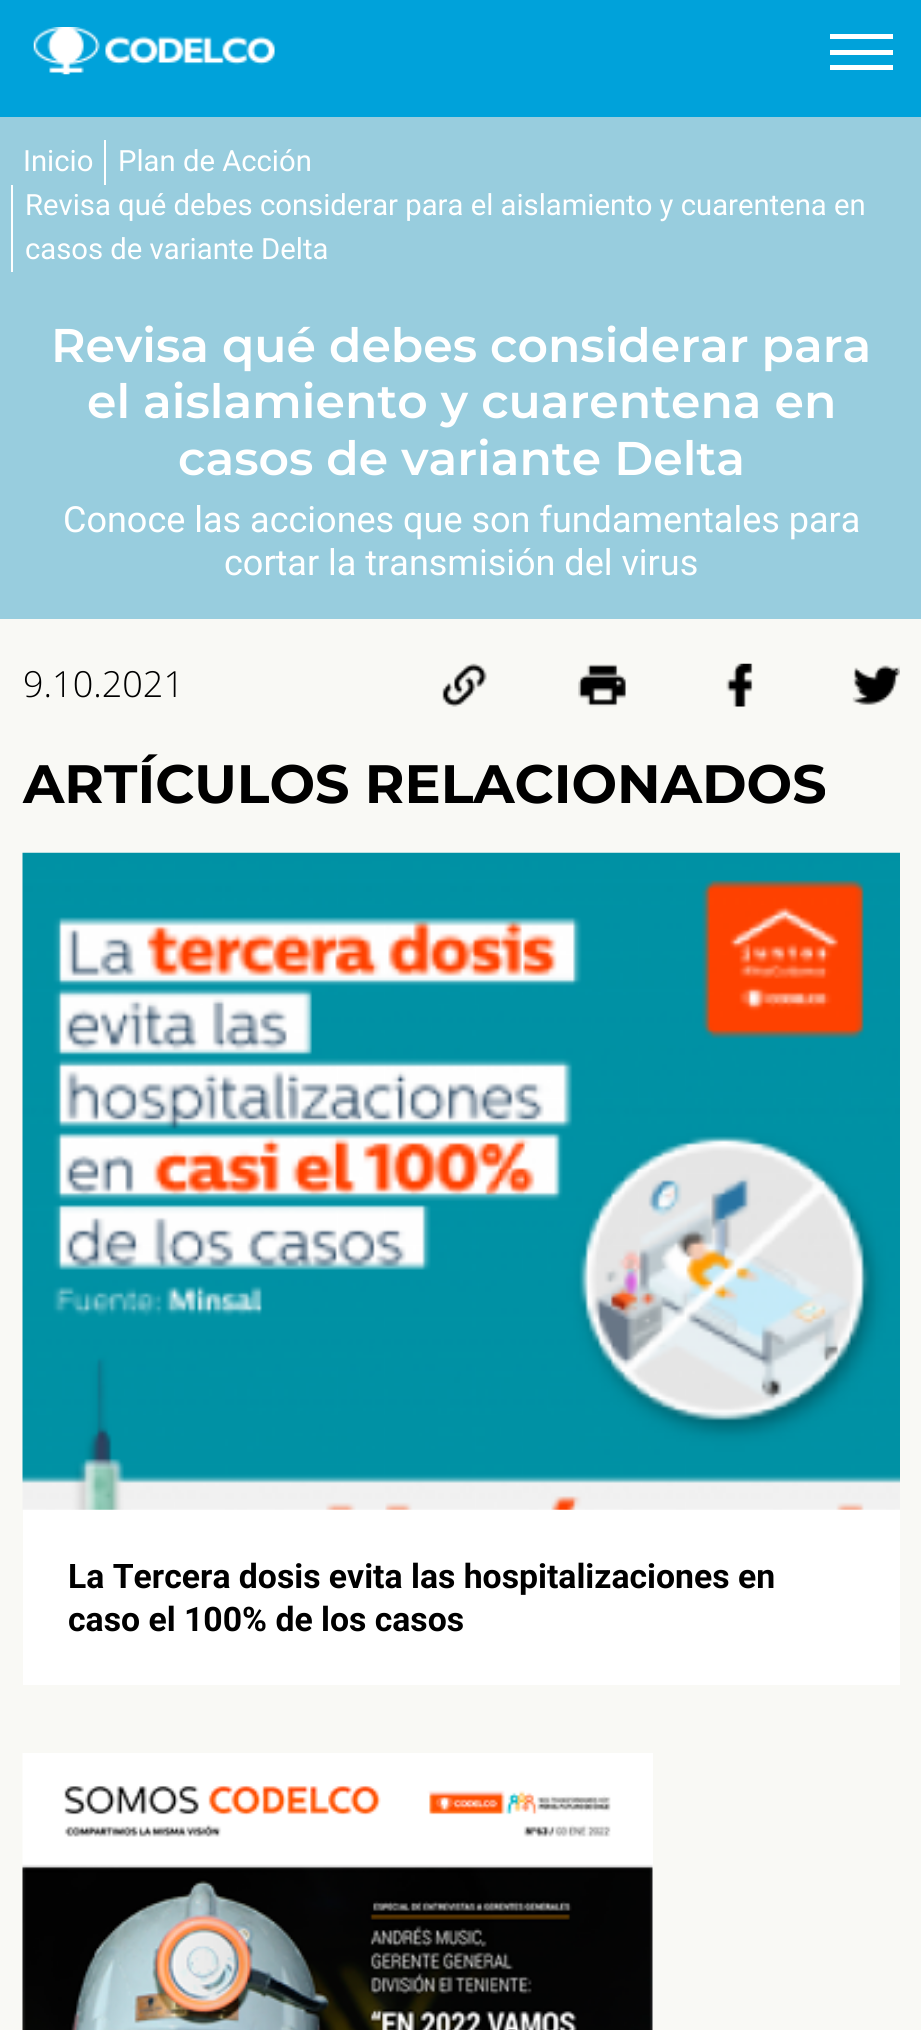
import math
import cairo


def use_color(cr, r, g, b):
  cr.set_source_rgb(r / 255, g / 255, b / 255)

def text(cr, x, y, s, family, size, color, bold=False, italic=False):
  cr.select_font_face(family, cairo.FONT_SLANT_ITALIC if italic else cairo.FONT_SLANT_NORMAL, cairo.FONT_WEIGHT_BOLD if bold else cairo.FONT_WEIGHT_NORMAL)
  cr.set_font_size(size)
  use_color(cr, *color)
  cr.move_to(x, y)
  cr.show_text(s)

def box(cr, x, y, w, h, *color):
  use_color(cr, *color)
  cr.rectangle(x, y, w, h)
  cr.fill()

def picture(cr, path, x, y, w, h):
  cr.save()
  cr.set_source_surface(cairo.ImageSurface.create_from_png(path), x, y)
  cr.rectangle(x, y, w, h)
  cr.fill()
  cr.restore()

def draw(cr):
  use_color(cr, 249, 249, 245)
  cr.paint()
  box(cr, 0, 0, 921, 117, 0, 162, 218)
  picture(cr, "img_01.png", 33, 27, 242, 48)
  box(cr, 830, 50, 63, 5, 255, 255, 255)
  box(cr, 830, 34, 63, 5, 255, 255, 255)
  box(cr, 830, 65, 63, 5, 255, 255, 255)
  box(cr, 0, 117, 921, 502, 152, 205, 222)
  box(cr, 104, 140, 2, 45, 255, 255, 255)
  box(cr, 11, 185, 2, 87, 255, 255, 255)
  picture(cr, "img_02.png", 442, 663, 45, 44)
  picture(cr, "img_03.png", 578, 664, 48, 43)
  picture(cr, "img_04.png", 726, 663, 27, 44)
  picture(cr, "img_05.png", 852, 665, 48, 40)
  box(cr, 23, 1509, 877, 176, 255, 255, 255)
  picture(cr, "img_06.png", 22, 852, 878, 658)
  box(cr, 652, 1753, 1, 277, 255, 255, 255)
  picture(cr, "img_07.png", 22, 1753, 631, 277)
  text(cr, 23, 171, "Inicio", "Roboto", 29.25, (255, 255, 255))
  text(cr, 118, 171, "Plan de Acción", "Roboto", 29.25, (255, 255, 255))
  text(cr, 25, 215, "Revisa qué debes considerar para el aislamiento y cuarentena en", "Roboto", 29.25, (255, 255, 255))
  text(cr, 25, 259, "casos de variante Delta", "Roboto", 29.25, (255, 255, 255))
  text(cr, 51, 362, "Revisa qué debes considerar para", "Montserrat SemiBold", 47.25, (255, 255, 255))
  text(cr, 87, 418, "el aislamiento y cuarentena en", "Montserrat SemiBold", 47.25, (255, 255, 255))
  text(cr, 178, 475, "casos de variante Delta", "Montserrat SemiBold", 47.25, (255, 255, 255))
  text(cr, 63, 532, "Conoce las acciones que son fundamentales para", "Roboto", 36, (255, 255, 255))
  text(cr, 224, 575, "cortar la transmisión del virus", "Roboto", 36, (255, 255, 255))
  text(cr, 23, 697, "9.10.2021", "Open Sans Light", 36, (0, 0, 0))
  text(cr, 23, 803, "ARTÍCULOS RELACIONADOS", "Montserrat", 54, (0, 0, 0), bold=True)
  text(cr, 68, 1588, "La Tercera dosis evita las hospitalizaciones en", "Roboto", 33.75, (0, 0, 0), bold=True)
  text(cr, 68, 1631, "caso el 100% de los casos", "Roboto", 33.75, (0, 0, 0), bold=True)


surface = cairo.ImageSurface(cairo.FORMAT_RGB24, 921, 2030)
cr = cairo.Context(surface)
options = cairo.FontOptions()
options.set_hint_metrics(cairo.HINT_METRICS_OFF)
options.set_hint_style(cairo.HINT_STYLE_NONE)
cr.set_font_options(options)
cr.set_miter_limit(4)
draw(cr)
surface.write_to_png("out.png")
